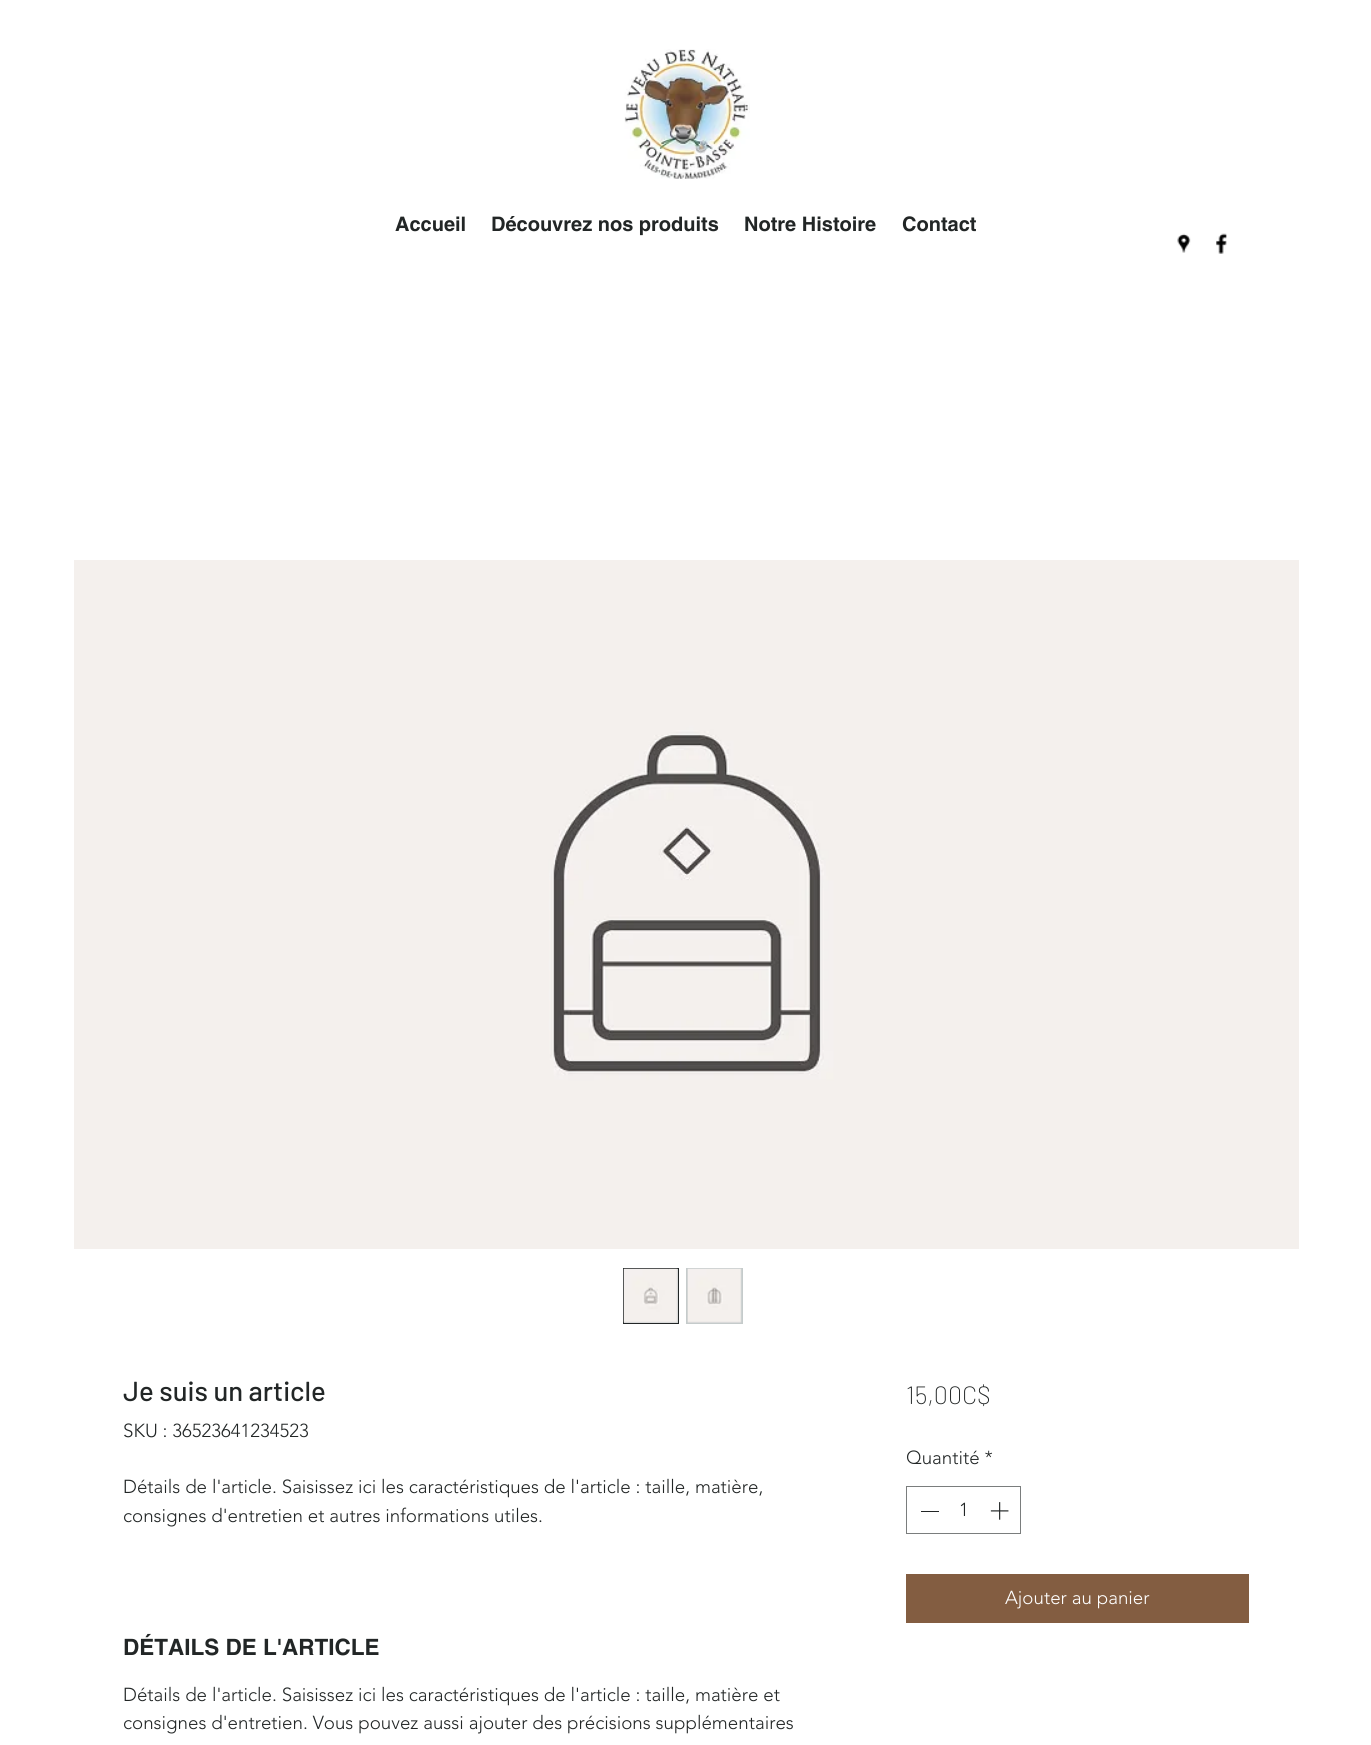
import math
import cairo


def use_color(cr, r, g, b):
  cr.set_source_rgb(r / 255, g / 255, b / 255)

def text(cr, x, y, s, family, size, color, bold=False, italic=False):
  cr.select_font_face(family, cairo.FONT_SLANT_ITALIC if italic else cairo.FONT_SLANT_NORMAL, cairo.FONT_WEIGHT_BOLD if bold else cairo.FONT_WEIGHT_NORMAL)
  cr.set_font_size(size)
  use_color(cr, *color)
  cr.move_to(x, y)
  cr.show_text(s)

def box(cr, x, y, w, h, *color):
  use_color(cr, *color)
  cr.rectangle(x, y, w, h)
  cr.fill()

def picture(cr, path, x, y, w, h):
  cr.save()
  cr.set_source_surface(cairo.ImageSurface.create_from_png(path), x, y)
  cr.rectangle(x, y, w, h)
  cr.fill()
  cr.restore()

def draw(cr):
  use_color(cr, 255, 255, 255)
  cr.paint()
  picture(cr, "img_01.png", 624, 49, 126, 130)
  picture(cr, "img_02.png", 1177, 233, 14, 20)
  picture(cr, "img_03.png", 1216, 233, 11, 21)
  picture(cr, "img_04.png", 74, 560, 1225, 689)
  use_color(cr, 197, 203, 203)
  cr.rectangle(623.5, 1268.5, 55, 55)
  cr.fill_preserve()
  use_color(cr, 34, 38, 38)
  cr.set_line_width(1)
  cr.stroke()
  picture(cr, "img_05.png", 623, 1268, 55, 55)
  box(cr, 686, 1268, 57, 56, 197, 203, 203)
  picture(cr, "img_06.png", 687, 1268, 55, 55)
  cr.rectangle(906.5, 1486.5, 114, 47)
  use_color(cr, 122, 125, 125)
  cr.stroke()
  box(cr, 921, 1511, 18, 1, 34, 38, 38)
  picture(cr, "img_07.png", 990, 1502, 19, 18)
  box(cr, 906, 1574, 343, 49, 131, 93, 65)
  text(cr, 395, 231, "Accueil", "helvetica", 20, (34, 38, 38), bold=True)
  text(cr, 491, 231, "Découvrez nos produits", "helvetica", 20, (34, 38, 38), bold=True)
  text(cr, 744, 231, "Notre Histoire", "helvetica", 20, (34, 38, 38), bold=True)
  text(cr, 902, 231, "Contact", "helvetica", 20, (34, 38, 38), bold=True)
  text(cr, 123, 1401, "Je suis un article", "Barlow Medium", 27.5, (34, 38, 38))
  text(cr, 123, 1437, "SKU : 36523641234523", "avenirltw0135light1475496 Light", 18.75, (34, 38, 38))
  text(cr, 123, 1493, "Détails de l'article. Saisissez ici les caractéristiques de l'article : taille, matière,", "avenirltw0135light1475496 Light", 18.75, (34, 38, 38))
  text(cr, 123, 1522, "consignes d'entretien et autres informations utiles.", "avenirltw0135light1475496 Light", 18.75, (34, 38, 38))
  text(cr, 123, 1655, "DÉTAILS DE L'ARTICLE", "helvetica", 22.5, (34, 38, 38), bold=True)
  text(cr, 123, 1701, "Détails de l'article. Saisissez ici les caractéristiques de l'article : taille, matière et", "avenirltw0135light1475496 Light", 18.75, (34, 38, 38))
  text(cr, 123, 1729, "consignes d'entretien. Vous pouvez aussi ajouter des précisions supplémentaires", "avenirltw0135light1475496 Light", 18.75, (34, 38, 38))
  text(cr, 906, 1404, "15,00C$", "Barlow ExtraLight", 25, (34, 38, 38))
  text(cr, 906, 1464, "Quantité *", "avenirltw0135light1475496 Light", 18.75, (34, 38, 38))
  text(cr, 959, 1516, "1", "avenirltw0135light1475496 Light", 18.75, (34, 38, 38))
  text(cr, 1005, 1604, "Ajouter au panier", "avenirltw0135light1475496 Light", 18.75, (255, 255, 255))


surface = cairo.ImageSurface(cairo.FORMAT_RGB24, 1371, 1745)
cr = cairo.Context(surface)
options = cairo.FontOptions()
options.set_hint_metrics(cairo.HINT_METRICS_OFF)
options.set_hint_style(cairo.HINT_STYLE_NONE)
cr.set_font_options(options)
cr.set_miter_limit(4)
draw(cr)
surface.write_to_png("out.png")
